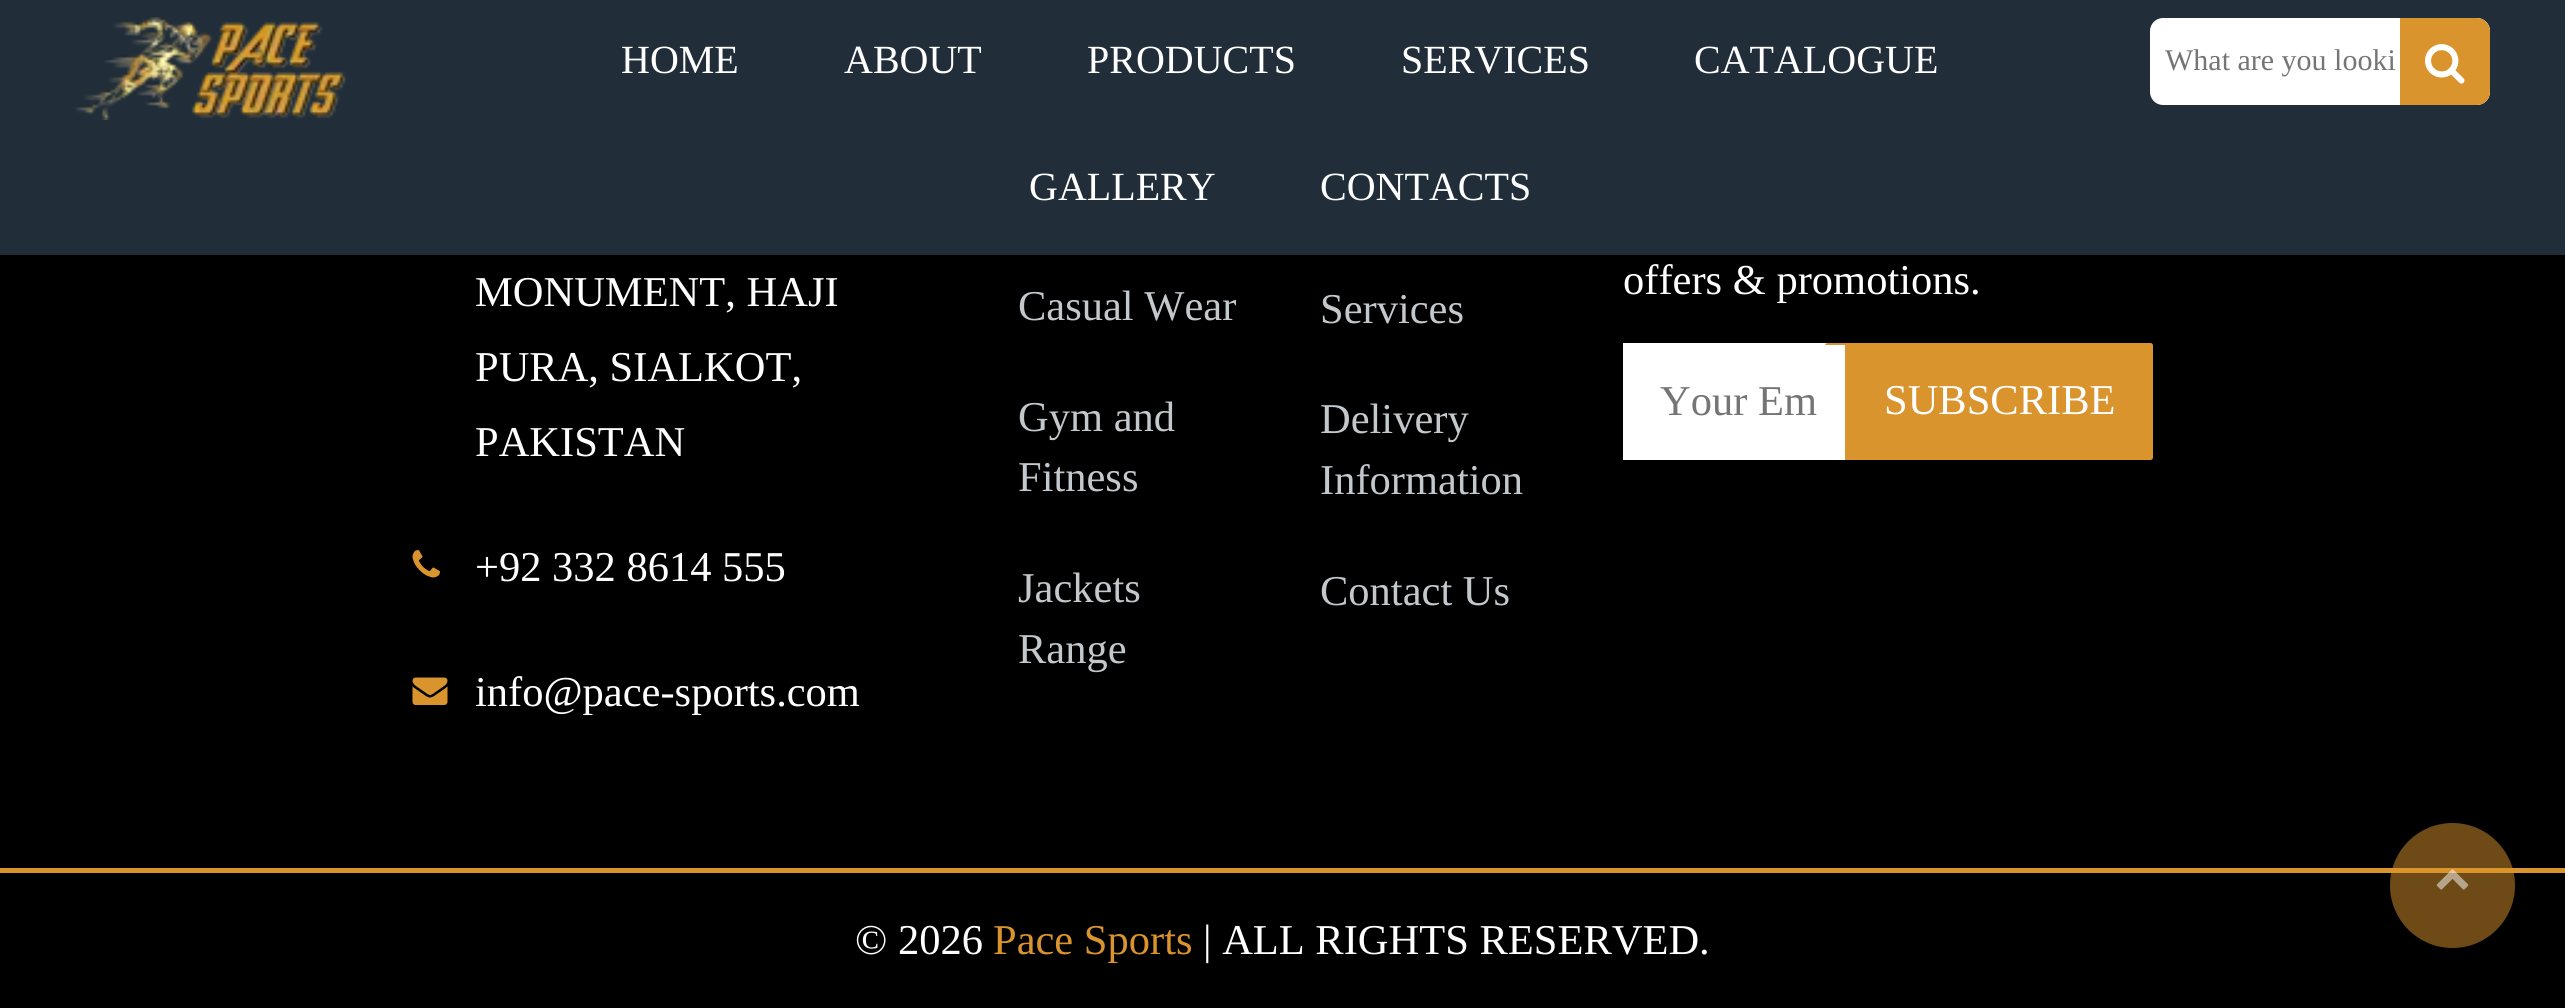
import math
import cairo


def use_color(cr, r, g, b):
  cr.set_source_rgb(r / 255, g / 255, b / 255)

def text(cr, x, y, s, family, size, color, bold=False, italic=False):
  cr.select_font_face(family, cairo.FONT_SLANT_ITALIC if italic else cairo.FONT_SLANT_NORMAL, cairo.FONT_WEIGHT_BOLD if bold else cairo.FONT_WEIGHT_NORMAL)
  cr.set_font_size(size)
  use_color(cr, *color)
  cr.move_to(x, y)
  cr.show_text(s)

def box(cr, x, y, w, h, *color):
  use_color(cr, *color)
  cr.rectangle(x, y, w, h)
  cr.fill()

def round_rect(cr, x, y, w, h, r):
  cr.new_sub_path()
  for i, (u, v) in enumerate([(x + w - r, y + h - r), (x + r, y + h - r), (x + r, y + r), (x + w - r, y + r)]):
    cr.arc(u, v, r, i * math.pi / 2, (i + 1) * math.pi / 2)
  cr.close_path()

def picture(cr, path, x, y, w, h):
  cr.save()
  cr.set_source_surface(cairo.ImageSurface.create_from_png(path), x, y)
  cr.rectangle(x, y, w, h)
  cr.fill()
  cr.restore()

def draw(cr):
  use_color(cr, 0, 0, 0)
  cr.paint()
  box(cr, 0, 0, 2565, 255, 33, 46, 57)
  picture(cr, "img_01.png", 75, 17, 271, 103)
  use_color(cr, 255, 255, 255)
  round_rect(cr, 2151.5, 19.5, 337, 84, 11.5)
  cr.fill_preserve()
  cr.set_line_width(3)
  cr.stroke()
  use_color(cr, 218, 148, 45)
  cr.new_path()
  cr.move_to(2400, 18)
  cr.line_to(2477, 18)
  cr.curve_to(2484, 18, 2490, 24, 2490, 31)
  cr.line_to(2490, 92)
  cr.curve_to(2490, 99, 2484, 105, 2477, 105)
  cr.line_to(2400, 105)
  cr.close_path()
  cr.fill()
  picture(cr, "img_02.png", 2425, 44, 40, 40)
  picture(cr, "img_03.png", 412, 550, 28, 28)
  picture(cr, "img_04.png", 412, 677, 36, 28)
  use_color(cr, 255, 255, 255)
  cr.new_path()
  cr.move_to(1623, 343)
  cr.line_to(2140, 343)
  cr.curve_to(2147, 343, 2153, 349, 2153, 356)
  cr.line_to(2153, 447)
  cr.curve_to(2153, 454, 2147, 460, 2140, 460)
  cr.line_to(1623, 460)
  cr.close_path()
  cr.fill()
  use_color(cr, 218, 148, 45)
  round_rect(cr, 1825, 343, 328, 117, 2.5)
  cr.fill()
  box(cr, 1825, 345, 20, 115, 255, 255, 255)
  box(cr, 0, 868, 2565, 5, 218, 148, 45)
  cr.set_source_rgba(0.855, 0.58, 0.176, 0.5)
  cr.arc(2452.5, 885.5, 62.5, 0, 2 * math.pi)
  cr.fill()
  picture(cr, "img_05.png", 2436, 869, 33, 21)
  text(cr, 621, 73, "HOME", "Liberation Serif", 40, (255, 255, 255))
  text(cr, 844, 73, "ABOUT", "Liberation Serif", 40, (255, 255, 255))
  text(cr, 1087, 73, "PRODUCTS", "Liberation Serif", 40, (255, 255, 255))
  text(cr, 1401, 73, "SERVICES", "Liberation Serif", 40, (255, 255, 255))
  text(cr, 1694, 73, "CATALOGUE", "Liberation Serif", 40, (255, 255, 255))
  text(cr, 1029, 200, "GALLERY", "Liberation Serif", 40, (255, 255, 255))
  text(cr, 1320, 200, "CONTACTS", "Liberation Serif", 40, (255, 255, 255))
  text(cr, 2165, 70, "What are you looki", "Liberation Serif", 30, (117, 117, 117))
  text(cr, 475, 306, "MONUMENT, HAJI", "Liberation Serif", 42.5, (255, 255, 255))
  text(cr, 475, 381, "PURA, SIALKOT,", "Liberation Serif", 42.5, (255, 255, 255))
  text(cr, 475, 456, "PAKISTAN", "Liberation Serif", 42.5, (255, 255, 255))
  text(cr, 475, 581, "+92 332 8614 555", "Liberation Serif", 42.5, (255, 255, 255))
  text(cr, 475, 706, "info@pace-sports.com", "Liberation Serif", 42.5, (255, 255, 255))
  text(cr, 1018, 320, "Casual Wear", "Liberation Serif", 42.5, (195, 200, 204))
  text(cr, 1018, 431, "Gym and", "Liberation Serif", 42.5, (195, 200, 204))
  text(cr, 1018, 491, "Fitness", "Liberation Serif", 42.5, (195, 200, 204))
  text(cr, 1018, 602, "Jackets", "Liberation Serif", 42.5, (195, 200, 204))
  text(cr, 1018, 663, "Range", "Liberation Serif", 42.5, (195, 200, 204))
  text(cr, 1320, 323, "Services", "Liberation Serif", 42.5, (195, 200, 204))
  text(cr, 1320, 433, "Delivery", "Liberation Serif", 42.5, (195, 200, 204))
  text(cr, 1320, 494, "Information", "Liberation Serif", 42.5, (195, 200, 204))
  text(cr, 1320, 605, "Contact Us", "Liberation Serif", 42.5, (195, 200, 204))
  text(cr, 1623, 294, "offers & promotions.", "Liberation Serif", 42.5, (255, 255, 255))
  text(cr, 1660, 415, "Your Em", "Liberation Serif", 42.5, (117, 117, 117))
  text(cr, 1884, 414, "SUBSCRIBE", "Liberation Serif", 42.5, (255, 255, 255))
  text(cr, 855, 954, "© 2026", "Liberation Serif", 42.5, (255, 255, 255))
  text(cr, 993, 954, "Pace Sports", "Liberation Serif", 42.5, (218, 148, 45))
  text(cr, 1203, 954, "| ALL RIGHTS RESERVED.", "Liberation Serif", 42.5, (255, 255, 255))


surface = cairo.ImageSurface(cairo.FORMAT_RGB24, 2565, 1008)
cr = cairo.Context(surface)
options = cairo.FontOptions()
options.set_hint_metrics(cairo.HINT_METRICS_OFF)
options.set_hint_style(cairo.HINT_STYLE_NONE)
cr.set_font_options(options)
cr.set_miter_limit(4)
draw(cr)
surface.write_to_png("out.png")
